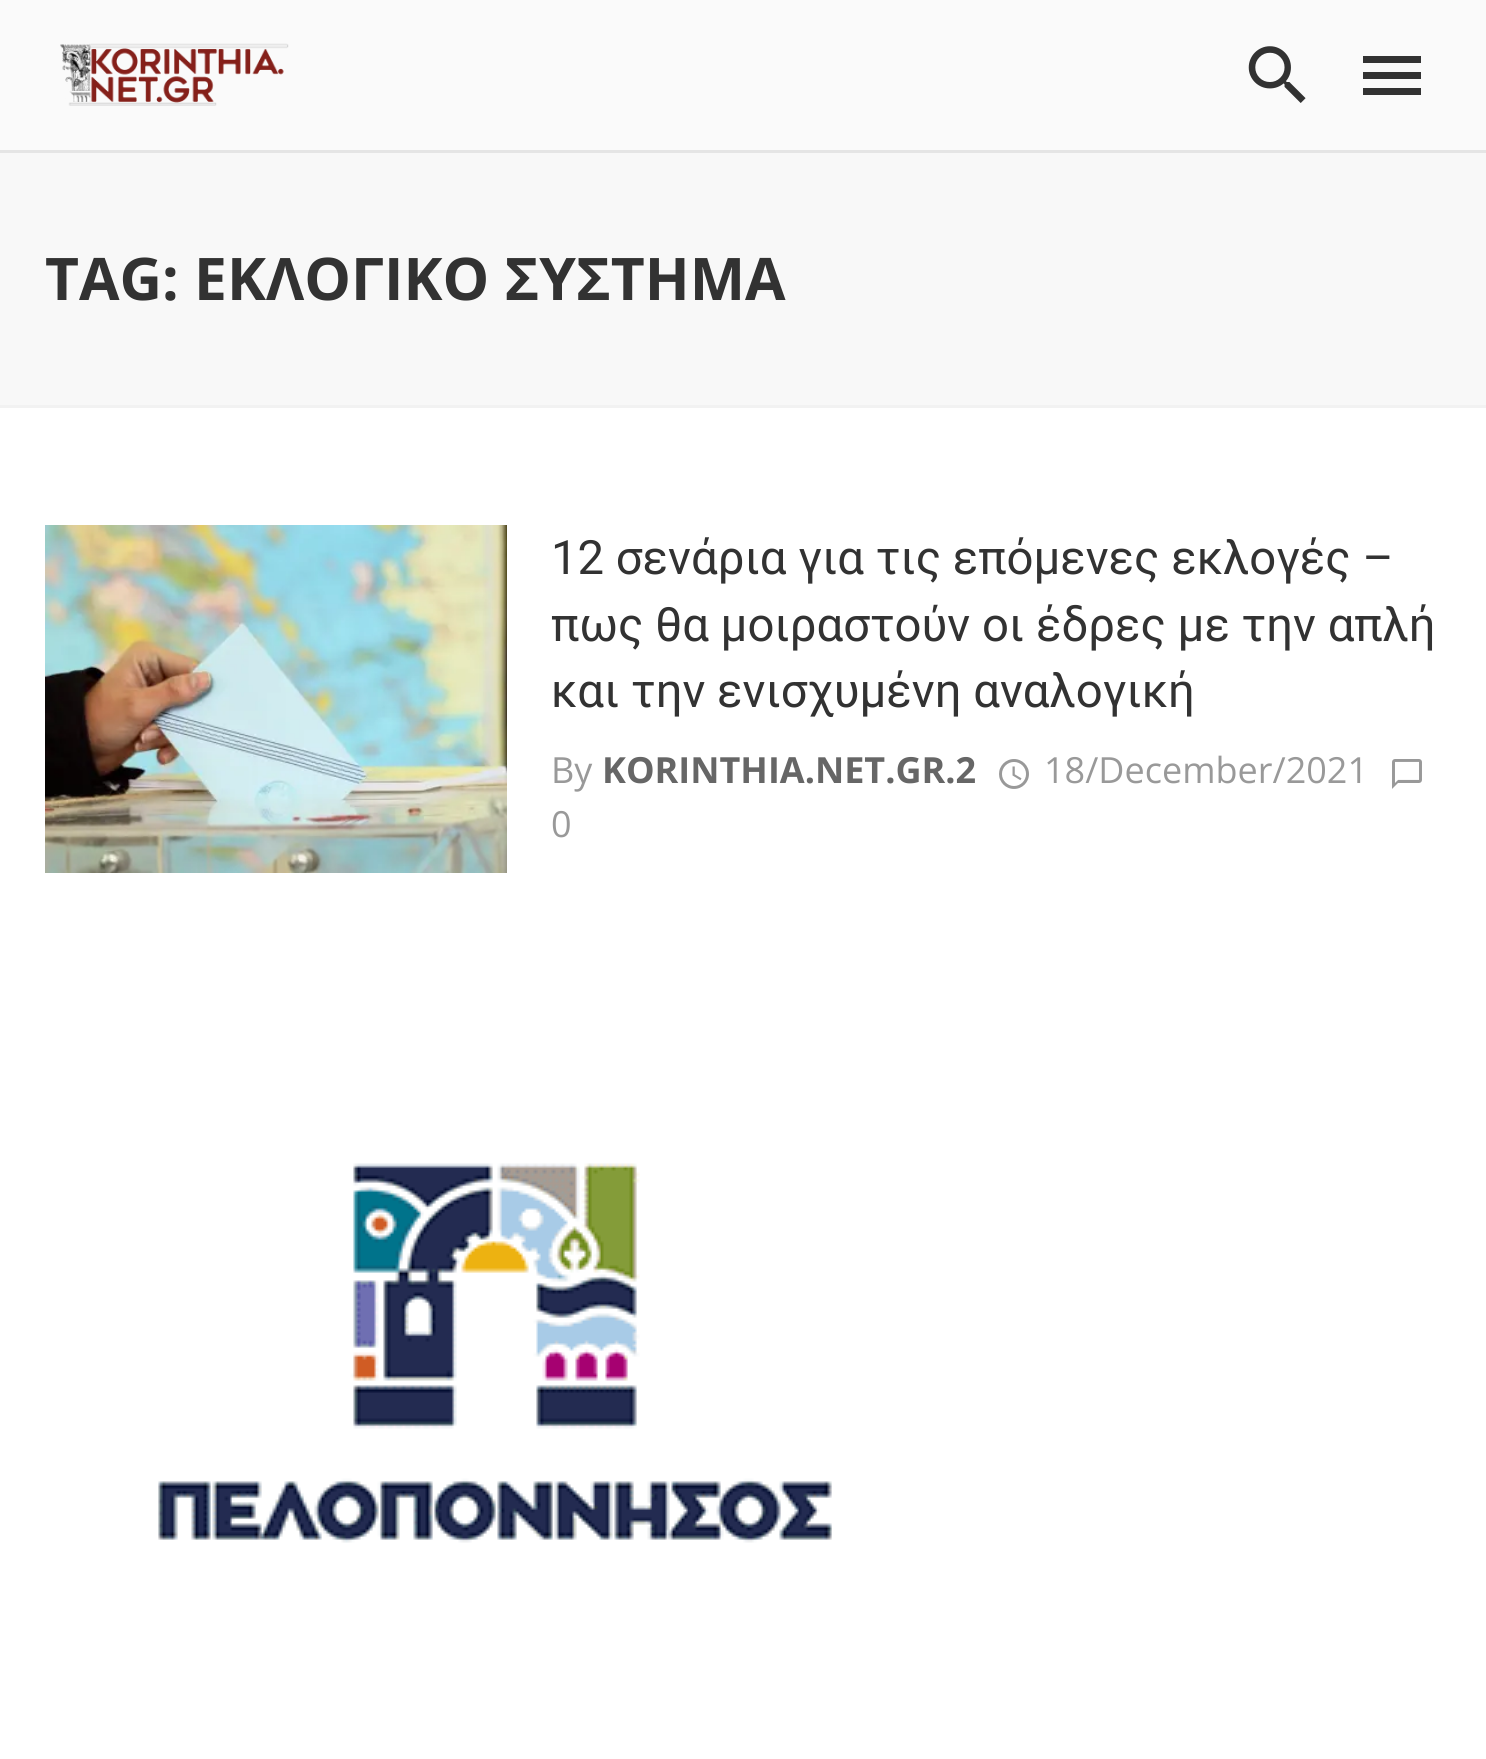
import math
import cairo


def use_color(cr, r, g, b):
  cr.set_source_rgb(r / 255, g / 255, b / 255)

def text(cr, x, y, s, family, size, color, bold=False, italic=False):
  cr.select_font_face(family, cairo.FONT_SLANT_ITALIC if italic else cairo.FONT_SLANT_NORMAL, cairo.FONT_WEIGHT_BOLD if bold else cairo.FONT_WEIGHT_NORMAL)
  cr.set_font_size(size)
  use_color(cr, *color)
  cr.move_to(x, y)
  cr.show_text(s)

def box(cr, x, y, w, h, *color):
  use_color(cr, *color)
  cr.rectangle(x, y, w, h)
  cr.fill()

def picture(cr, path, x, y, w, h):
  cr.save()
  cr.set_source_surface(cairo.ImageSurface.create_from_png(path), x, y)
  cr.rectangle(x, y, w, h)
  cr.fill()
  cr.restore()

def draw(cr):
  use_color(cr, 255, 255, 255)
  cr.paint()
  cr.rectangle(-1.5, 148.5, 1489, 258)
  use_color(cr, 242, 242, 242)
  cr.set_line_width(3)
  cr.stroke()
  box(cr, 0, 150, 1486, 3, 238, 238, 238)
  cr.set_source_rgba(0, 0, 0, 0.04)
  cr.rectangle(0, 150, 1486, 3)
  cr.fill()
  box(cr, 0, 0, 1486, 150, 250, 250, 250)
  picture(cr, "img_01.png", 60, 43, 229, 63)
  picture(cr, "img_02.png", 1248, 46, 58, 57)
  use_color(cr, 50, 50, 50)
  cr.new_path()
  cr.move_to(1363, 56)
  cr.line_to(1421, 56)
  cr.line_to(1421, 63)
  cr.line_to(1363, 63)
  cr.close_path()
  cr.move_to(1363, 79)
  cr.line_to(1363, 72)
  cr.line_to(1421, 72)
  cr.line_to(1421, 79)
  cr.close_path()
  cr.move_to(1363, 95)
  cr.line_to(1363, 88)
  cr.line_to(1421, 88)
  cr.line_to(1421, 95)
  cr.close_path()
  cr.fill()
  box(cr, 0, 153, 1486, 252, 248, 248, 248)
  picture(cr, "img_03.png", 45, 525, 462, 348)
  picture(cr, "img_04.png", 999, 759, 30, 30)
  picture(cr, "img_05.png", 1392, 759, 30, 30)
  picture(cr, "img_06.png", 158, 1163, 674, 380)
  text(cr, 45, 300, "TAG: ΕΚΛΟΓΙΚΟ ΣΥΣΤΗΜΑ", "Open Sans", 58.75, (50, 50, 50), bold=True)
  text(cr, 551, 574, "12 σενάρια για τις επόμενες εκλογές –", "Roboto", 47.25, (50, 50, 50))
  text(cr, 551, 641, "πως θα μοιραστούν οι έδρες με την απλή", "Roboto", 47.25, (50, 50, 50))
  text(cr, 551, 707, "και την ενισχυμένη αναλογική", "Roboto", 47.25, (50, 50, 50))
  text(cr, 551, 783, "By", "Open Sans", 36, (153, 153, 153))
  text(cr, 602, 783, "KORINTHIA.NET.GR.2", "Open Sans", 36, (102, 102, 102), bold=True)
  text(cr, 1044, 783, "18/December/2021", "Open Sans", 36, (153, 153, 153))
  text(cr, 551, 837, "0", "Open Sans", 36, (153, 153, 153))


surface = cairo.ImageSurface(cairo.FORMAT_RGB24, 1486, 1759)
cr = cairo.Context(surface)
options = cairo.FontOptions()
options.set_hint_metrics(cairo.HINT_METRICS_OFF)
options.set_hint_style(cairo.HINT_STYLE_NONE)
cr.set_font_options(options)
cr.set_miter_limit(4)
draw(cr)
surface.write_to_png("out.png")
